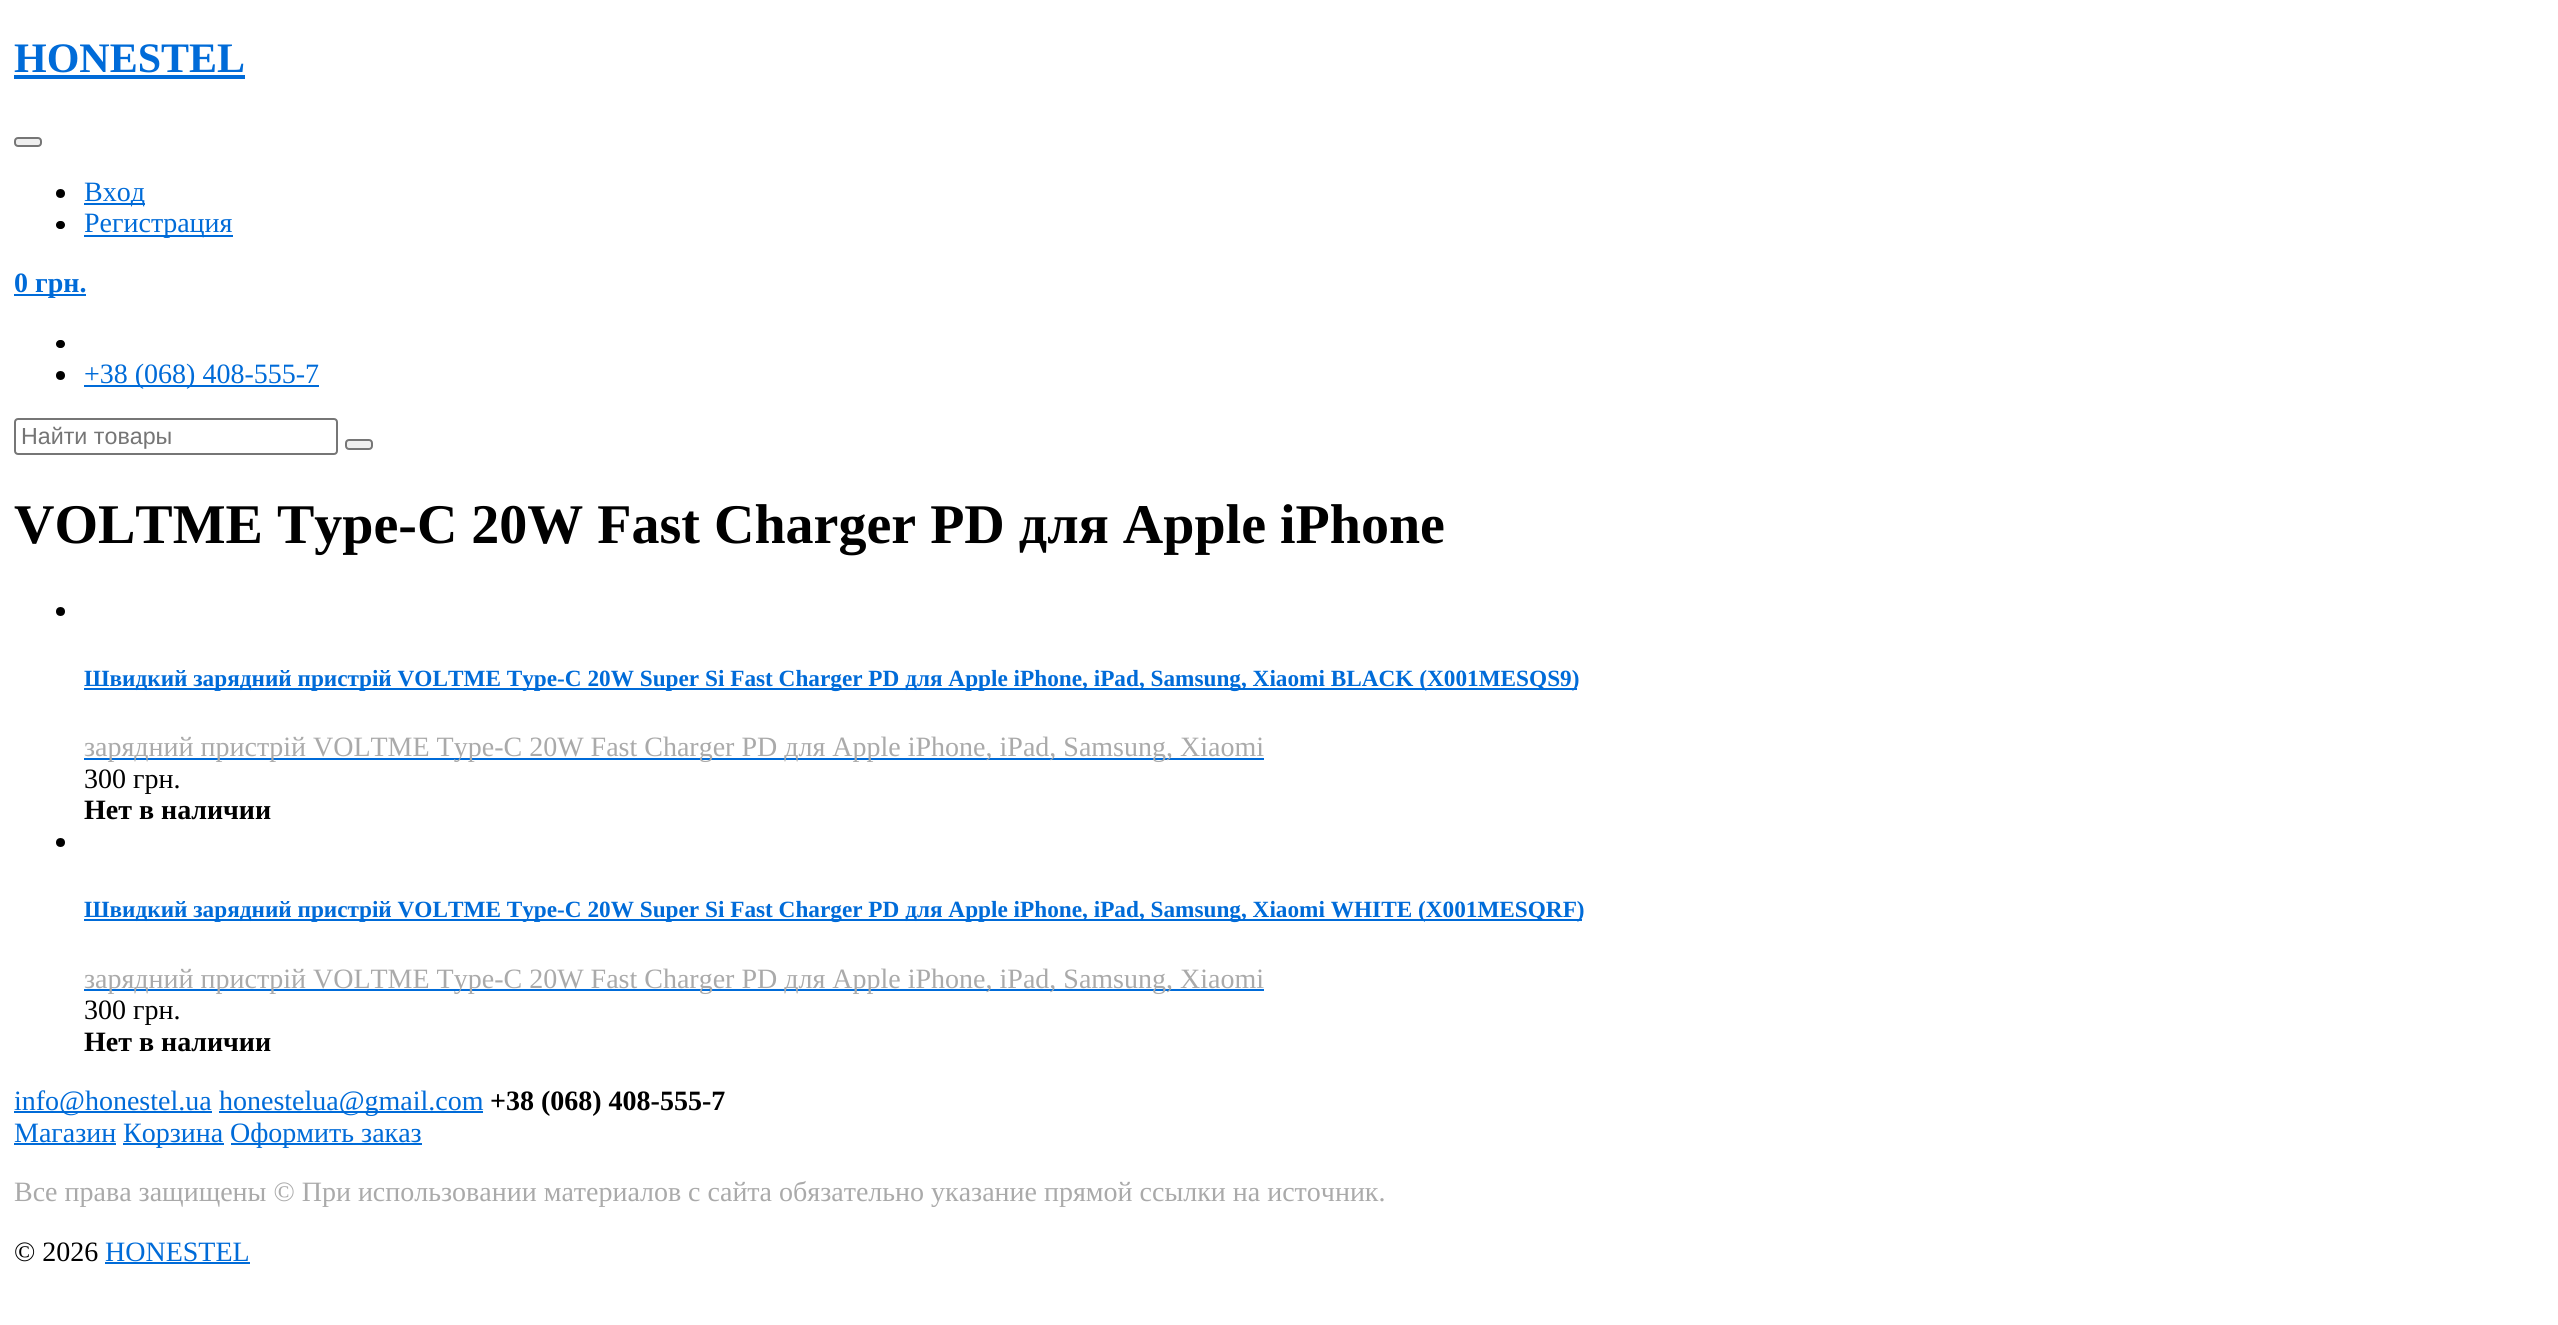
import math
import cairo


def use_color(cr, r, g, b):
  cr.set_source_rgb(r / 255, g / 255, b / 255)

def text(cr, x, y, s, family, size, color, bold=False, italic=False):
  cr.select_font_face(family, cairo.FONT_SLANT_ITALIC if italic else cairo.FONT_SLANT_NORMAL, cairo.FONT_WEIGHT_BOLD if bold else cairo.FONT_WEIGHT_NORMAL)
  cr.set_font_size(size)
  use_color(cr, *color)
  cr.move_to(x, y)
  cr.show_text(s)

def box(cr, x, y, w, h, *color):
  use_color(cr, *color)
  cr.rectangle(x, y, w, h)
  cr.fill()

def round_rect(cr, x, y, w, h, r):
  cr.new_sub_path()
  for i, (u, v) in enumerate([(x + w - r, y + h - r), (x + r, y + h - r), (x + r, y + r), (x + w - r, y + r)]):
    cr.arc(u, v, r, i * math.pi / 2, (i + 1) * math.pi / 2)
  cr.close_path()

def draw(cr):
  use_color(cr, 255, 255, 255)
  cr.paint()
  box(cr, 14, 75, 231, 4, 0, 107, 216)
  use_color(cr, 239, 239, 239)
  round_rect(cr, 15, 138, 26, 8, 3)
  cr.fill_preserve()
  use_color(cr, 118, 118, 118)
  cr.stroke()
  use_color(cr, 0, 0, 0)
  cr.arc(60.5, 193.5, 4.5, 0, 2 * math.pi)
  cr.fill()
  box(cr, 84, 203, 61, 2, 0, 107, 216)
  use_color(cr, 0, 0, 0)
  round_rect(cr, 56, 221, 9, 8, 4)
  cr.fill()
  box(cr, 84, 235, 149, 2, 0, 107, 216)
  box(cr, 14, 294, 72, 2, 0, 107, 216)
  use_color(cr, 0, 0, 0)
  round_rect(cr, 56, 340, 9, 8, 4)
  cr.fill()
  cr.arc(60.5, 375.5, 4.5, 0, 2 * math.pi)
  cr.fill()
  box(cr, 84, 385, 235, 2, 0, 107, 216)
  round_rect(cr, 15, 419, 322, 35, 3)
  use_color(cr, 118, 118, 118)
  cr.stroke()
  use_color(cr, 239, 239, 239)
  round_rect(cr, 346, 440, 26, 9, 3)
  cr.fill_preserve()
  use_color(cr, 118, 118, 118)
  cr.stroke()
  use_color(cr, 0, 0, 0)
  cr.arc(60.5, 611.5, 4.5, 0, 2 * math.pi)
  cr.fill()
  box(cr, 84, 688, 1493, 2, 0, 107, 216)
  box(cr, 84, 758, 1180, 2, 0, 107, 216)
  use_color(cr, 0, 0, 0)
  cr.arc(60.5, 842.5, 4.5, 0, 2 * math.pi)
  cr.fill()
  box(cr, 84, 919, 1498, 2, 0, 107, 216)
  box(cr, 84, 989, 1180, 2, 0, 107, 216)
  box(cr, 14, 1111, 198, 2, 0, 107, 216)
  box(cr, 219, 1111, 264, 2, 0, 107, 216)
  box(cr, 14, 1143, 102, 2, 0, 107, 216)
  box(cr, 123, 1143, 101, 2, 0, 107, 216)
  box(cr, 231, 1143, 191, 2, 0, 107, 216)
  box(cr, 105, 1262, 145, 2, 0, 107, 216)
  text(cr, 14, 72, "HONESTEL", "Liberation Serif", 42, (0, 107, 216), bold=True)
  text(cr, 84, 201, "Вход", "Liberation Serif", 28, (0, 107, 216))
  text(cr, 84, 232, "Регистрация", "Liberation Serif", 28, (0, 107, 216))
  text(cr, 14, 292, "0 грн.", "Liberation Serif", 28, (0, 107, 216), bold=True)
  text(cr, 84, 383, "+38 (068) 408-555-7", "Liberation Serif", 28, (0, 107, 216))
  text(cr, 21, 444, "Найти товары", "Liberation Sans", 23.25, (117, 117, 117))
  text(cr, 14, 543, "VOLTME Type-C 20W Fast Charger PD для Apple iPhone", "Liberation Serif", 56, (0, 0, 0), bold=True)
  text(cr, 84, 686, "Швидкий зарядний пристрій VOLTME Type-C 20W Super Si Fast Charger PD для Apple iPhone, iPad, Samsung, Xiaomi BLACK (X001MESQS9)", "Liberation Serif", 23.25, (0, 107, 216), bold=True)
  text(cr, 84, 756, "зарядний пристрій VOLTME Type-C 20W Fast Charger PD для Apple iPhone, iPad, Samsung, Xiaomi", "Liberation Serif", 28, (170, 170, 170))
  text(cr, 84, 788, "300 грн.", "Liberation Serif", 28, (0, 0, 0))
  text(cr, 84, 819, "Нет в наличии", "Liberation Serif", 28, (0, 0, 0), bold=True)
  text(cr, 84, 917, "Швидкий зарядний пристрій VOLTME Type-C 20W Super Si Fast Charger PD для Apple iPhone, iPad, Samsung, Xiaomi WHITE (X001MESQRF)", "Liberation Serif", 23.25, (0, 107, 216), bold=True)
  text(cr, 84, 988, "зарядний пристрій VOLTME Type-C 20W Fast Charger PD для Apple iPhone, iPad, Samsung, Xiaomi", "Liberation Serif", 28, (170, 170, 170))
  text(cr, 84, 1019, "300 грн.", "Liberation Serif", 28, (0, 0, 0))
  text(cr, 84, 1051, "Нет в наличии", "Liberation Serif", 28, (0, 0, 0), bold=True)
  text(cr, 14, 1110, "info@honestel.ua", "Liberation Serif", 28, (0, 107, 216))
  text(cr, 219, 1110, "honestelua@gmail.com", "Liberation Serif", 28, (0, 107, 216))
  text(cr, 490, 1110, "+38 (068) 408-555-7", "Liberation Serif", 28, (0, 0, 0), bold=True)
  text(cr, 14, 1142, "Магазин", "Liberation Serif", 28, (0, 107, 216))
  text(cr, 123, 1142, "Корзина", "Liberation Serif", 28, (0, 107, 216))
  text(cr, 230, 1142, "Оформить заказ", "Liberation Serif", 28, (0, 107, 216))
  text(cr, 14, 1201, "Все права защищены © При использовании материалов с сайта обязательно указание прямой ссылки на источник.", "Liberation Serif", 28, (170, 170, 170))
  text(cr, 14, 1261, "© 2026", "Liberation Serif", 28, (0, 0, 0))
  text(cr, 105, 1261, "HONESTEL", "Liberation Serif", 28, (0, 107, 216))


surface = cairo.ImageSurface(cairo.FORMAT_RGB24, 2558, 1325)
cr = cairo.Context(surface)
options = cairo.FontOptions()
options.set_hint_metrics(cairo.HINT_METRICS_OFF)
options.set_hint_style(cairo.HINT_STYLE_NONE)
cr.set_font_options(options)
cr.set_miter_limit(4)
draw(cr)
surface.write_to_png("out.png")
